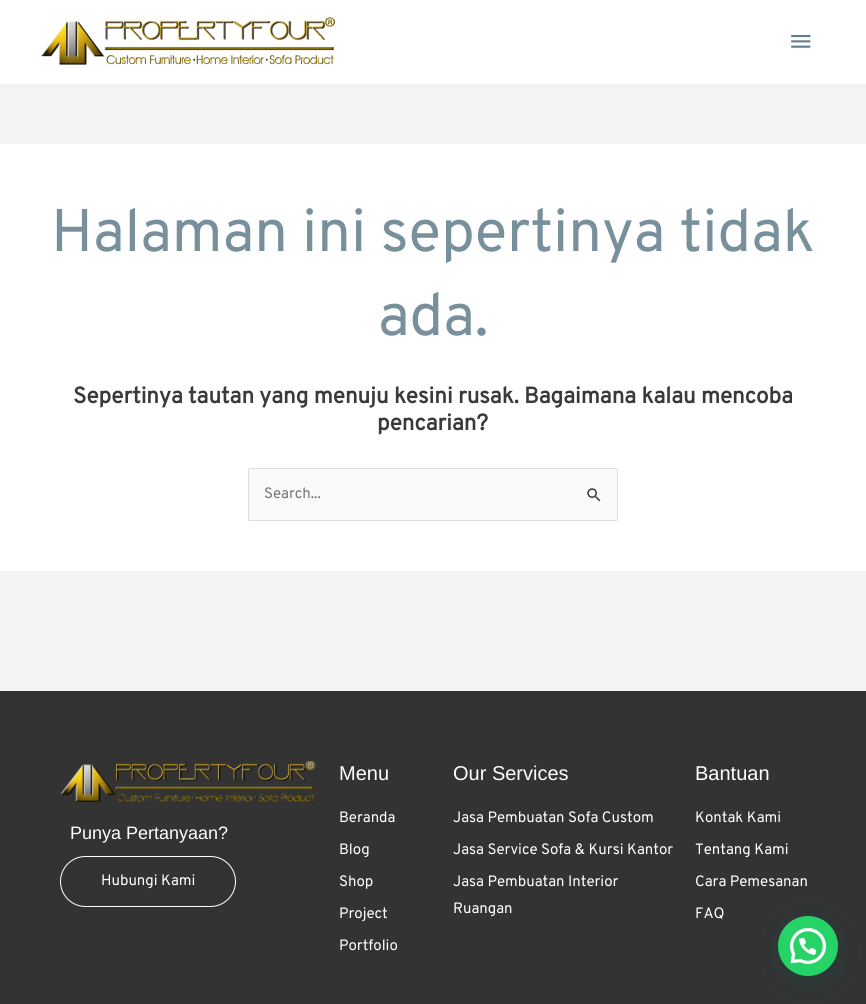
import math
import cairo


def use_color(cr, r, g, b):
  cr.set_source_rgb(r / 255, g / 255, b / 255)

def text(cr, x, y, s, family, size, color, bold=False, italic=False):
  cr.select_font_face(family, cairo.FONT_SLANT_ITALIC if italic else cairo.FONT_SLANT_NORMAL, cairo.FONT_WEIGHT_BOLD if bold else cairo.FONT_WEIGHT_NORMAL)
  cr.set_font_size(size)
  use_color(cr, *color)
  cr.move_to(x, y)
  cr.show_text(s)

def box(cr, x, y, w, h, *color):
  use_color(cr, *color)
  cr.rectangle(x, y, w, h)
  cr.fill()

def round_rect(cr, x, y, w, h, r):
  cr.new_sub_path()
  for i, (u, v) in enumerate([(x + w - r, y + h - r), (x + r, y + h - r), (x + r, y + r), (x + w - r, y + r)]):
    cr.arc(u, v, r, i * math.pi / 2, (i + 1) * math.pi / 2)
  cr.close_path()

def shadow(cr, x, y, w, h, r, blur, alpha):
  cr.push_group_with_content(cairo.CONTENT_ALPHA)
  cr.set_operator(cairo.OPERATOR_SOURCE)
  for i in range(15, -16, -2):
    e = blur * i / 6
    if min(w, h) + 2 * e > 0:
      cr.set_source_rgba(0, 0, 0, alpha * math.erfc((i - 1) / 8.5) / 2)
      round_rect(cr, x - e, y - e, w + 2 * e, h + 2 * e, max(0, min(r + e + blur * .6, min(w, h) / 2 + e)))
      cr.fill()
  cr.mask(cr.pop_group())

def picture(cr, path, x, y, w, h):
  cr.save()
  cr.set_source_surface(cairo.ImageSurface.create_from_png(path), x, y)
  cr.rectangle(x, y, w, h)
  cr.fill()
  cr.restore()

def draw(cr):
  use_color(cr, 243, 243, 243)
  cr.paint()
  box(cr, 0, 0, 866, 84, 255, 255, 255)
  picture(cr, "img_01.png", 41, 17, 295, 48)
  picture(cr, "img_02.png", 791, 35, 20, 13)
  box(cr, 0, 144, 866, 427, 255, 255, 255)
  use_color(cr, 250, 250, 250)
  round_rect(cr, 248.5, 468.5, 369, 52, 1.5)
  cr.fill_preserve()
  use_color(cr, 221, 221, 221)
  cr.set_line_width(1)
  cr.stroke()
  picture(cr, "img_03.png", 587, 488, 14, 14)
  box(cr, 0, 691, 866, 313, 51, 51, 51)
  picture(cr, "img_04.png", 60, 761, 256, 41)
  round_rect(cr, 60.5, 856.5, 175, 50, 25)
  use_color(cr, 255, 255, 255)
  cr.stroke()
  use_color(cr, 7, 94, 84)
  shadow(cr, 779, 922, 60, 60, 30, 12, 0.24)
  use_color(cr, 37, 211, 102)
  cr.arc(808, 946, 30, 0, 2 * math.pi)
  cr.fill()
  picture(cr, "img_05.png", 790, 928, 36, 36)
  text(cr, 51, 251, "Halaman ini sepertinya tidak", "Overpass", 60, (120, 144, 156))
  text(cr, 378, 335, "ada.", "Overpass", 60, (120, 144, 156))
  text(cr, 73, 403, "Sepertinya tautan yang menuju kesini rusak. Bagaimana kalau mencoba", "Overpass", 22.5, (58, 58, 58), bold=True)
  text(cr, 377, 430, "pencarian?", "Overpass", 22.5, (58, 58, 58), bold=True)
  text(cr, 264, 498, "Search...", "Overpass", 15, (117, 117, 117))
  text(cr, 70, 839, "Punya Pertanyaan?", "Liberation Sans", 18, (255, 255, 255))
  text(cr, 101, 885, "Hubungi Kami", "Overpass", 15, (255, 255, 255))
  text(cr, 339, 780, "Menu", "Liberation Sans", 20, (255, 255, 255))
  text(cr, 339, 822, "Beranda", "Overpass", 15, (255, 255, 255))
  text(cr, 339, 854, "Blog", "Overpass", 15, (255, 255, 255))
  text(cr, 339, 886, "Shop", "Overpass", 15, (255, 255, 255))
  text(cr, 339, 918, "Project", "Overpass", 15, (255, 255, 255))
  text(cr, 339, 950, "Portfolio", "Overpass", 15, (255, 255, 255))
  text(cr, 453, 780, "Our Services", "Liberation Sans", 20, (255, 255, 255))
  text(cr, 453, 822, "Jasa Pembuatan Sofa Custom", "Overpass", 15, (255, 255, 255))
  text(cr, 453, 854, "Jasa Service Sofa & Kursi Kantor", "Overpass", 15, (255, 255, 255))
  text(cr, 453, 886, "Jasa Pembuatan Interior", "Overpass", 15, (255, 255, 255))
  text(cr, 453, 913, "Ruangan", "Overpass", 15, (255, 255, 255))
  text(cr, 695, 780, "Bantuan", "Liberation Sans", 20, (255, 255, 255))
  text(cr, 695, 822, "Kontak Kami", "Overpass", 15, (255, 255, 255))
  text(cr, 695, 854, "Tentang Kami", "Overpass", 15, (255, 255, 255))
  text(cr, 695, 886, "Cara Pemesanan", "Overpass", 15, (255, 255, 255))
  text(cr, 695, 918, "FAQ", "Overpass", 15, (255, 255, 255))


surface = cairo.ImageSurface(cairo.FORMAT_RGB24, 866, 1004)
cr = cairo.Context(surface)
options = cairo.FontOptions()
options.set_hint_metrics(cairo.HINT_METRICS_OFF)
options.set_hint_style(cairo.HINT_STYLE_NONE)
cr.set_font_options(options)
cr.set_miter_limit(4)
draw(cr)
surface.write_to_png("out.png")
